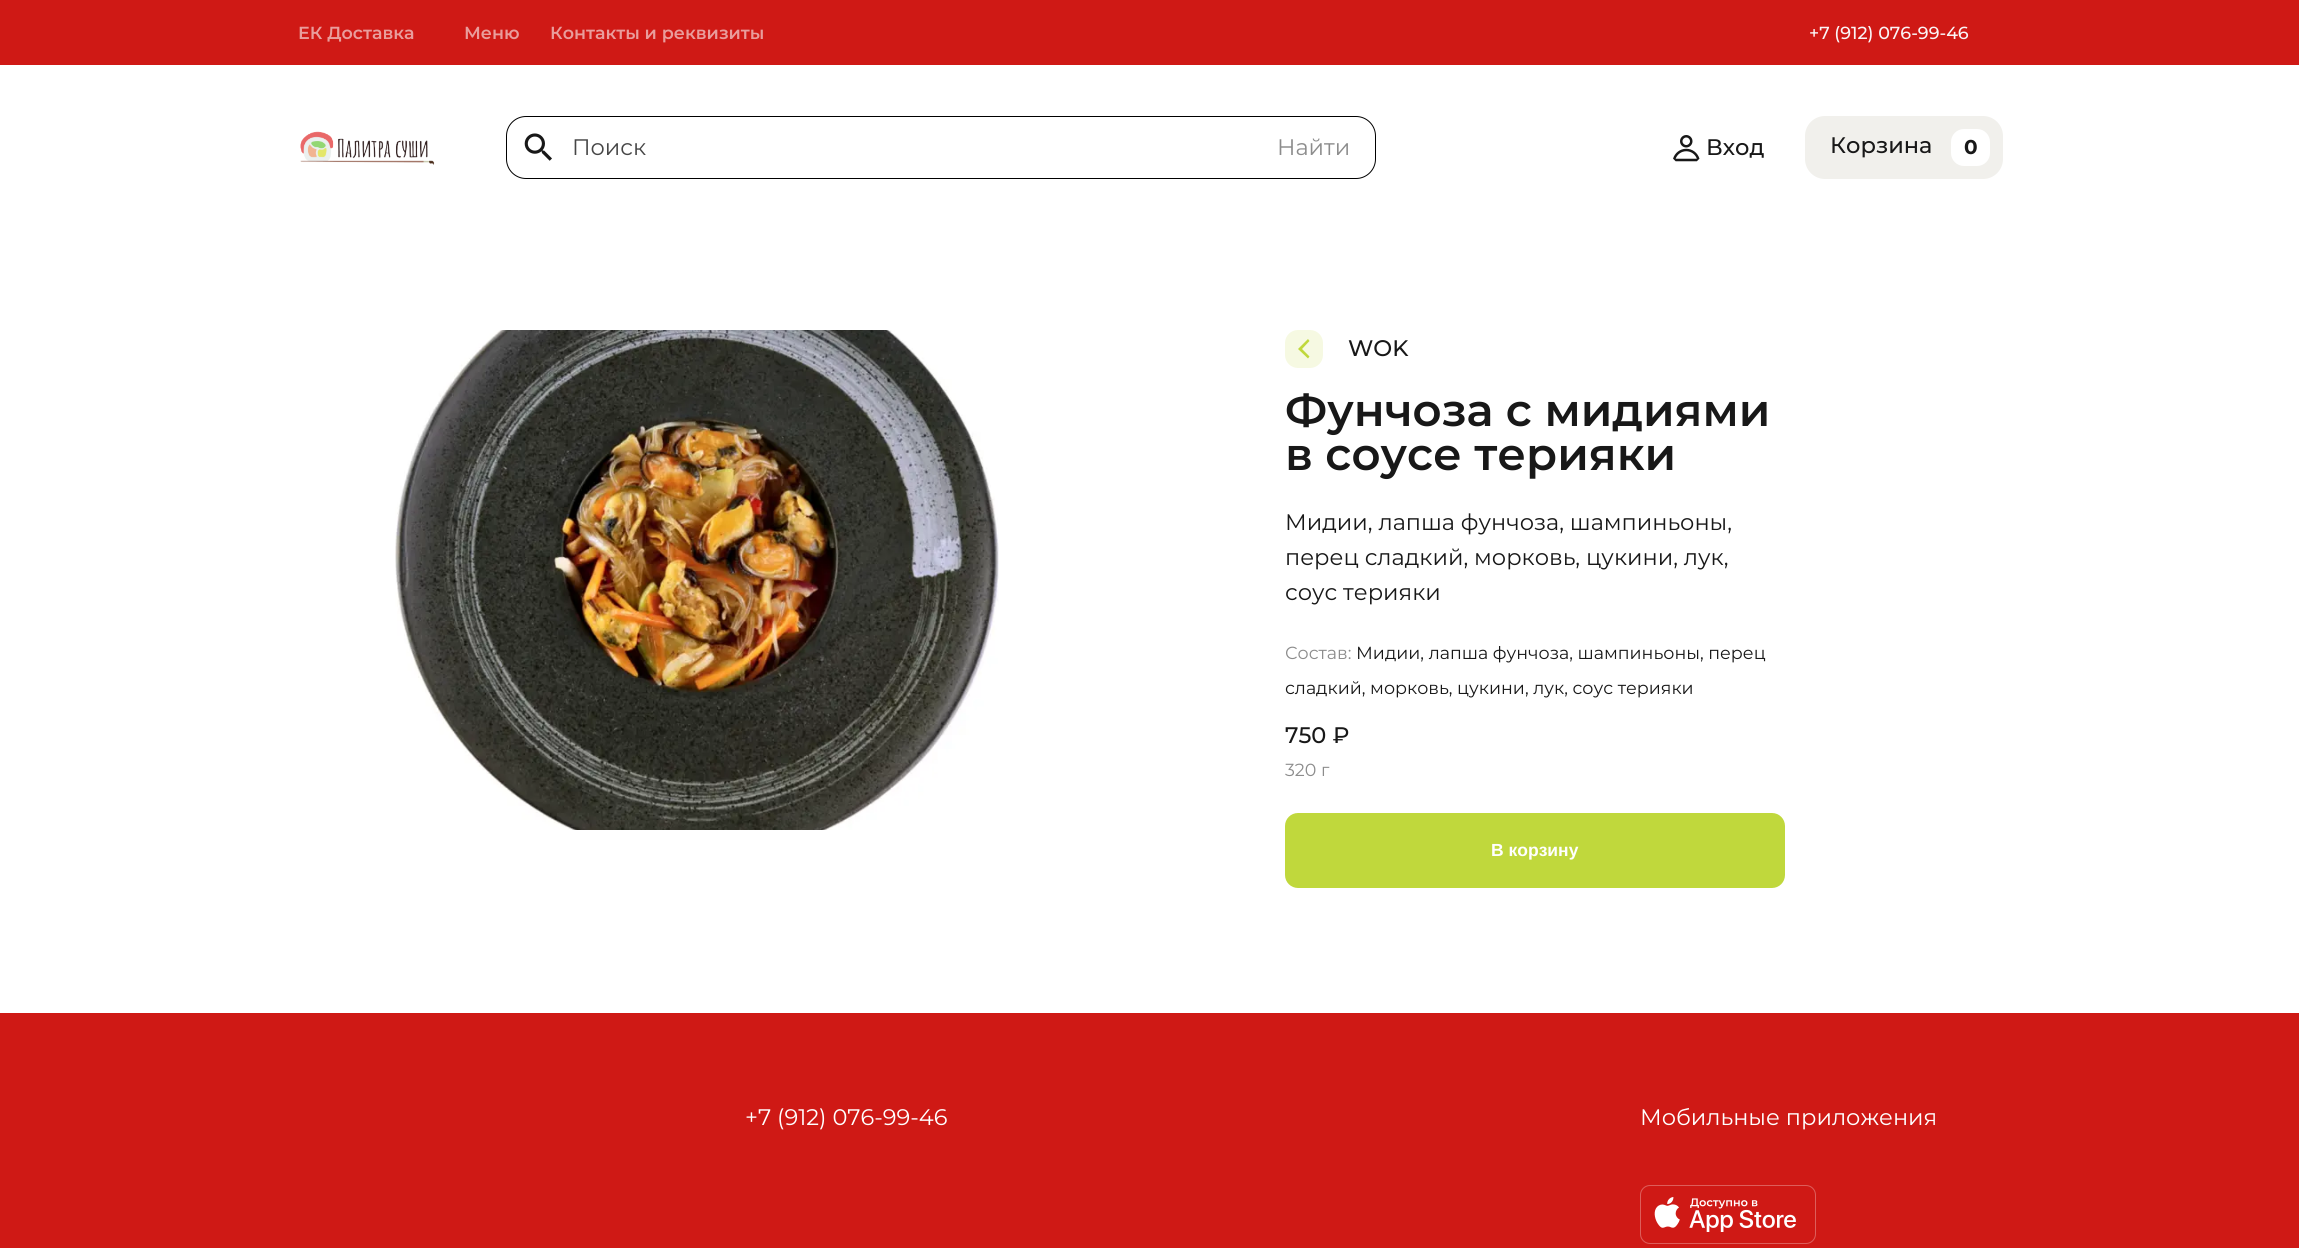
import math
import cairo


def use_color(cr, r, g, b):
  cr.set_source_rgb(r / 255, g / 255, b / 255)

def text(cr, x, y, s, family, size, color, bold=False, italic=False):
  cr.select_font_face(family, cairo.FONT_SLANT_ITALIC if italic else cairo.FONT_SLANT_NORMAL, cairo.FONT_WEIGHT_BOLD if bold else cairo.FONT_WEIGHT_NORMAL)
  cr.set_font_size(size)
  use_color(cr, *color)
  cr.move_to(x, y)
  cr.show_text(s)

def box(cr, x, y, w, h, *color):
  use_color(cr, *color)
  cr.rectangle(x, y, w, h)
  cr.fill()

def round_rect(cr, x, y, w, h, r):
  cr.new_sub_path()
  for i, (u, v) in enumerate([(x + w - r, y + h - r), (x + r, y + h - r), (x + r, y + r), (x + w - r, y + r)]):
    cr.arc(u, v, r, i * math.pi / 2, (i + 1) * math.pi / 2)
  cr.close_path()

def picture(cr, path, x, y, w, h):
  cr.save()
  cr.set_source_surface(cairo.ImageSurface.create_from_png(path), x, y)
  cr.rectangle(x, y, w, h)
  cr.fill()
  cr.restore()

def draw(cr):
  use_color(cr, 255, 255, 255)
  cr.paint()
  box(cr, 0, 0, 2299, 65, 207, 25, 21)
  picture(cr, "img_01.png", 300, 131, 135, 34)
  round_rect(cr, 506.5, 116.5, 869, 62, 19.5)
  use_color(cr, 0, 0, 0)
  cr.set_line_width(1)
  cr.stroke()
  picture(cr, "img_02.png", 524, 133, 28, 28)
  picture(cr, "img_03.png", 1673, 135, 27, 27)
  use_color(cr, 241, 240, 236)
  round_rect(cr, 1805, 116, 198, 63, 20)
  cr.fill()
  use_color(cr, 255, 255, 255)
  round_rect(cr, 1951, 129, 39, 37, 13)
  cr.fill()
  picture(cr, "img_04.png", 395, 330, 604, 500)
  use_color(cr, 246, 249, 226)
  round_rect(cr, 1285, 330, 38, 38, 13)
  cr.fill()
  use_color(cr, 192, 216, 60)
  cr.new_path()
  cr.move_to(1308, 339)
  cr.line_to(1309.5, 341)
  cr.line_to(1302, 349)
  cr.line_to(1309.5, 356.5)
  cr.line_to(1308, 358.5)
  cr.line_to(1298, 349)
  cr.close_path()
  cr.fill()
  round_rect(cr, 1285, 813, 500, 75, 13)
  cr.fill()
  box(cr, 0, 1013, 2299, 235, 207, 25, 21)
  picture(cr, "img_05.png", 1640, 1185, 176, 59)
  text(cr, 298, 39, "ЕК Доставка", "Montserrat SemiBold", 17.5, (233, 157, 156))
  text(cr, 464, 39, "Меню", "Montserrat SemiBold", 17.5, (233, 157, 156))
  text(cr, 550, 39, "Контакты и реквизиты", "Montserrat SemiBold", 17.5, (233, 157, 156))
  text(cr, 1809, 39, "+7 (912) 076-99-46", "Montserrat Medium", 17.5, (250, 245, 246))
  text(cr, 572, 155, "Поиск", "Montserrat", 22.5, (70, 70, 70))
  text(cr, 1277, 155, "Найти", "Montserrat", 22.5, (140, 140, 140))
  text(cr, 1706, 155, "Вход", "Montserrat Medium", 22.5, (24, 24, 24))
  text(cr, 1830, 153, "Корзина", "Montserrat Medium", 22.5, (24, 24, 24))
  text(cr, 1964, 154, "0", "Montserrat", 20, (24, 24, 24), bold=True)
  text(cr, 1348, 356, "WOK", "Montserrat Medium", 22.5, (24, 24, 24))
  text(cr, 1285, 426, "Фунчоза с мидиями", "Montserrat SemiBold", 45, (24, 24, 24))
  text(cr, 1285, 470, "в соусе терияки", "Montserrat SemiBold", 45, (24, 24, 24))
  text(cr, 1285, 530, "Мидии, лапша фунчоза, шампиньоны,", "Montserrat", 22.5, (24, 24, 24))
  text(cr, 1285, 565, "перец сладкий, морковь, цукини, лук,", "Montserrat", 22.5, (24, 24, 24))
  text(cr, 1285, 600, "соус терияки", "Montserrat", 22.5, (24, 24, 24))
  text(cr, 1285, 659, "Состав:", "Montserrat", 17.5, (140, 140, 140))
  text(cr, 1356, 659, "Мидии, лапша фунчоза, шампиньоны, перец", "Montserrat", 17.5, (24, 24, 24))
  text(cr, 1285, 694, "сладкий, морковь, цукини, лук, соус терияки", "Montserrat", 17.5, (24, 24, 24))
  text(cr, 1285, 743, "750 ₽", "Montserrat Medium", 22.5, (24, 24, 24))
  text(cr, 1285, 776, "320 г", "Montserrat", 17.5, (140, 140, 140))
  text(cr, 1491, 856, "В корзину", "Liberation Sans", 17.5, (255, 255, 255), bold=True)
  text(cr, 745, 1125, "+7 (912) 076-99-46", "Montserrat", 22.5, (255, 255, 255))
  text(cr, 1640, 1125, "Мобильные приложения", "Montserrat", 22.5, (255, 255, 255))


surface = cairo.ImageSurface(cairo.FORMAT_RGB24, 2299, 1248)
cr = cairo.Context(surface)
options = cairo.FontOptions()
options.set_hint_metrics(cairo.HINT_METRICS_OFF)
options.set_hint_style(cairo.HINT_STYLE_NONE)
cr.set_font_options(options)
cr.set_miter_limit(4)
draw(cr)
surface.write_to_png("out.png")
